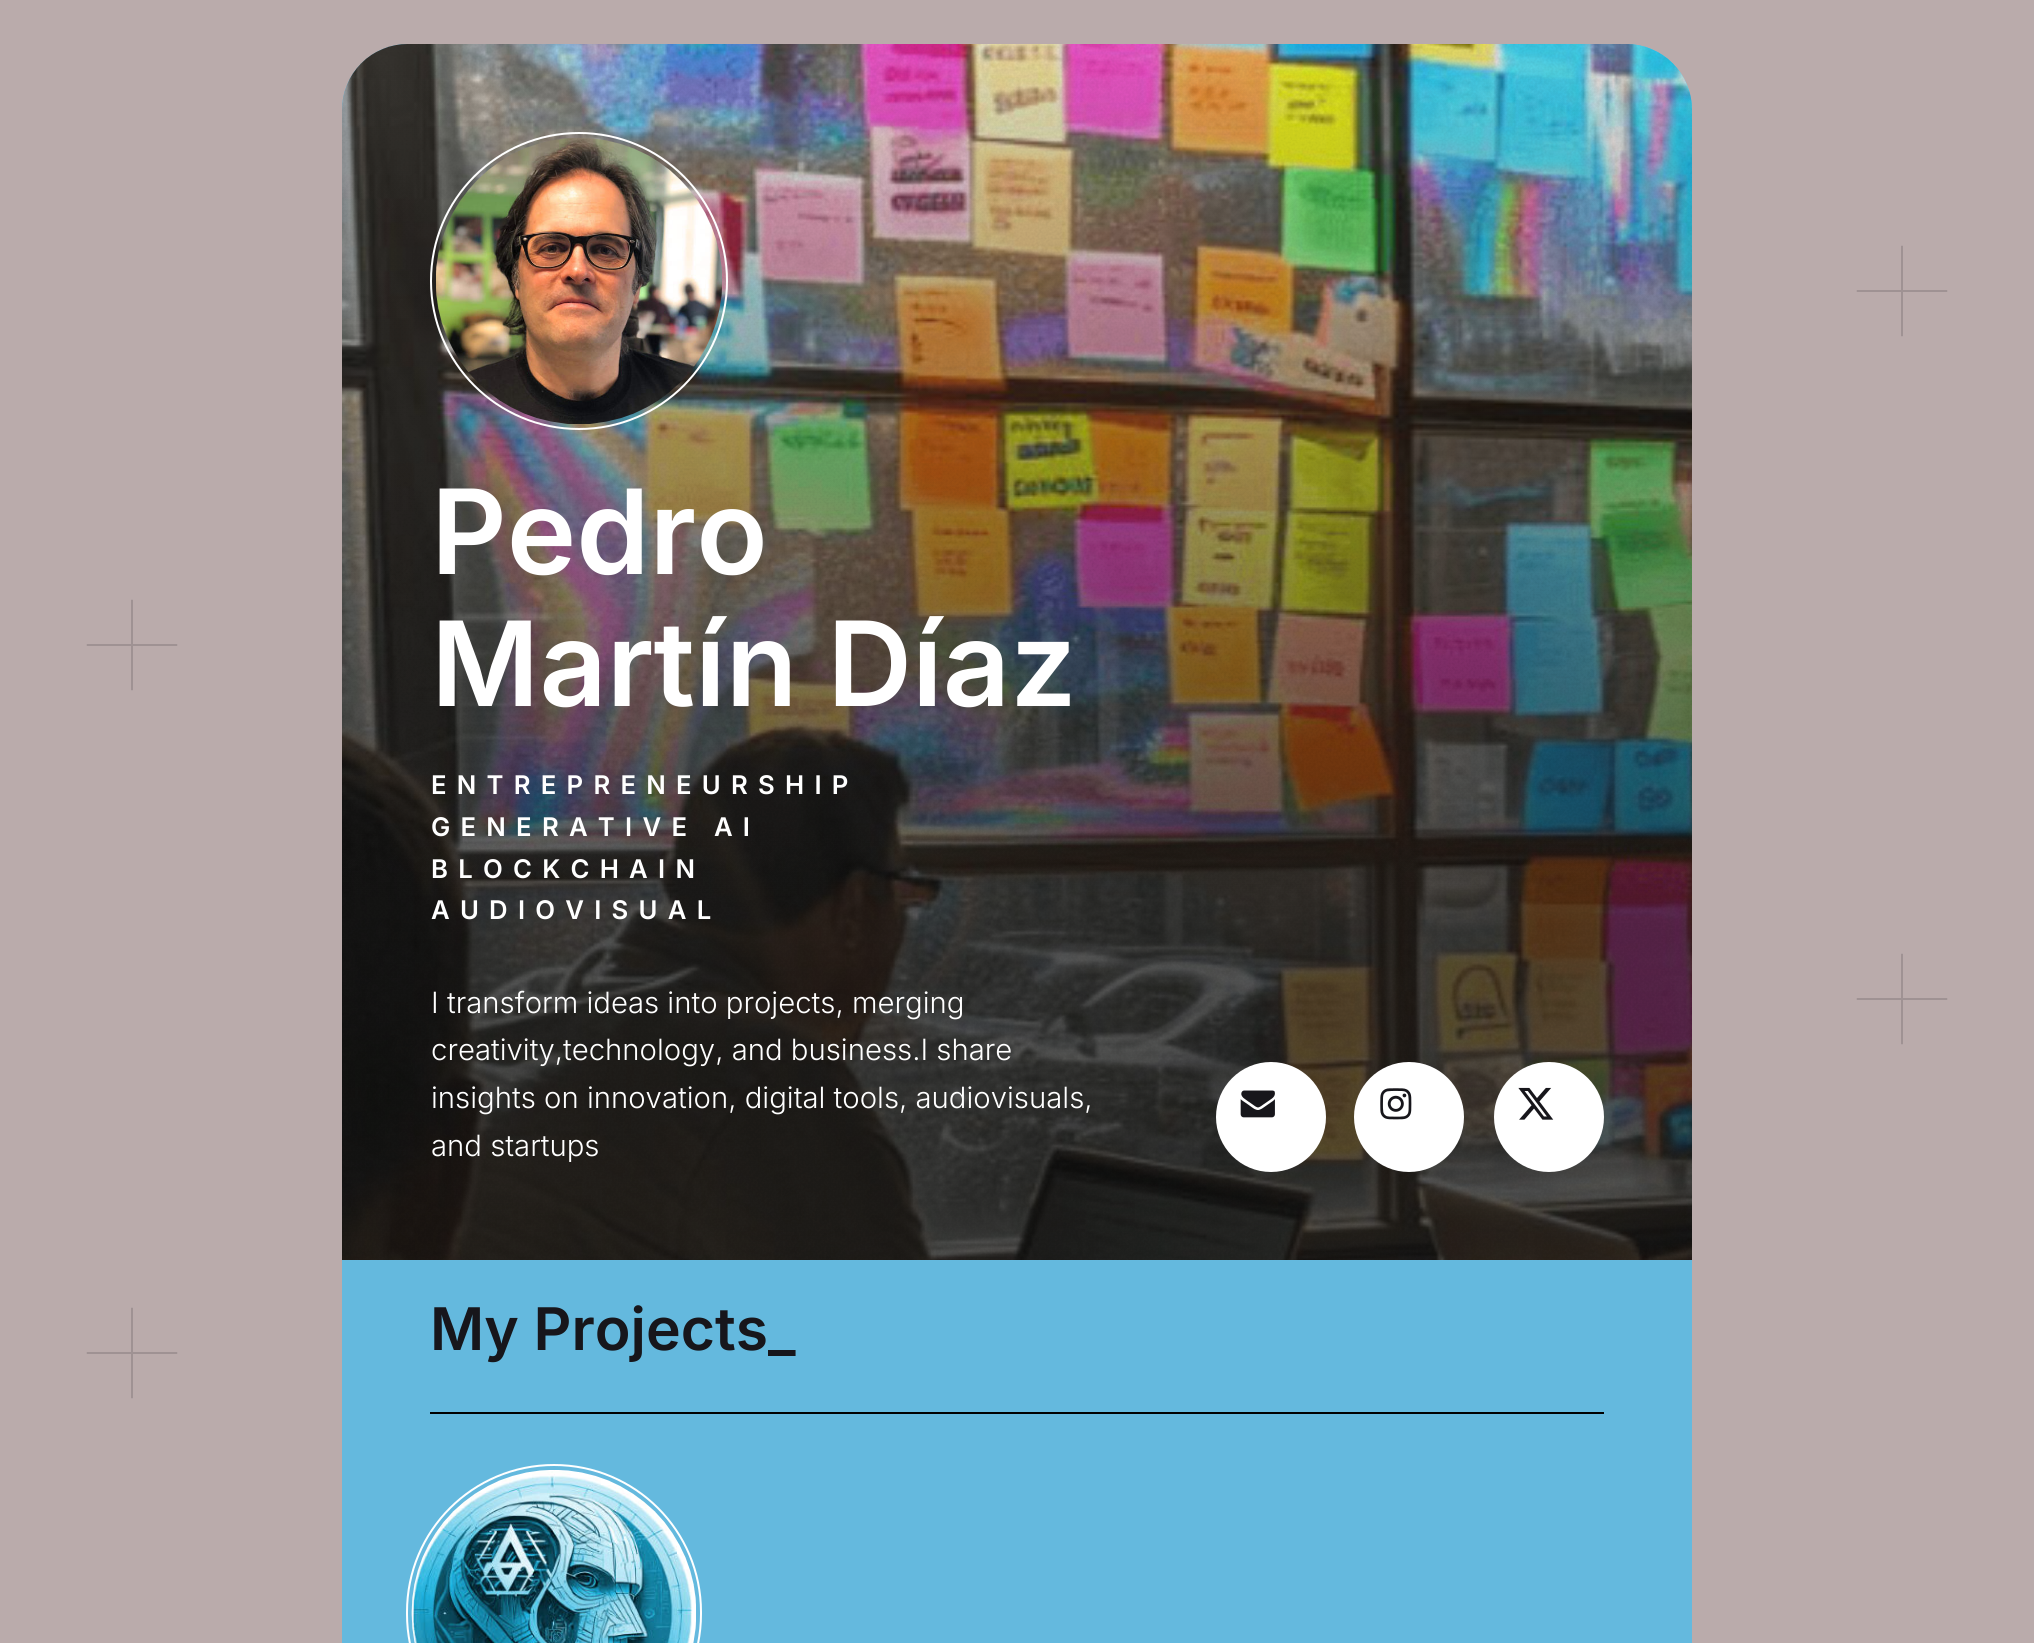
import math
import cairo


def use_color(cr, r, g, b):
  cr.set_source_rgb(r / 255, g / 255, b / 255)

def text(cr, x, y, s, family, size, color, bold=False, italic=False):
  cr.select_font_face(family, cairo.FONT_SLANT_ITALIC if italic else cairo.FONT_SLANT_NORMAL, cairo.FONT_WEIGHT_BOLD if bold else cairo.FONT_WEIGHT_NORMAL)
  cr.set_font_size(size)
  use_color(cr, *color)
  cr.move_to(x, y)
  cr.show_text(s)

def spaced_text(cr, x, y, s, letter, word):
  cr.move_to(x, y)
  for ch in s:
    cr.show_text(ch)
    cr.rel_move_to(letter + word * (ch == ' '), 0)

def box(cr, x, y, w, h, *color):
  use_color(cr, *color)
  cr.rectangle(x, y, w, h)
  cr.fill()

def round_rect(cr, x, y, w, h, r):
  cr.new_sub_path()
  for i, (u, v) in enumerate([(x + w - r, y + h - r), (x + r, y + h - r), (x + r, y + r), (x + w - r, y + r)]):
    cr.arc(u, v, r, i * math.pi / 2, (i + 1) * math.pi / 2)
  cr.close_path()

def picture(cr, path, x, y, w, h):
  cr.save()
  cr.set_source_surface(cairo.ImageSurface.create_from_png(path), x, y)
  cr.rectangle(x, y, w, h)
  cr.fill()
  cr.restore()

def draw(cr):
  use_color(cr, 186, 171, 171)
  cr.paint()
  picture(cr, "img_01.png", 86, 245, 1862, 1154)
  use_color(cr, 100, 185, 222)
  round_rect(cr, 342, 44, 1350, 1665, 66)
  cr.fill()
  picture(cr, "img_02.png", 342, 44, 1350, 1216)
  picture(cr, "img_03.png", 342, 44, 1350, 1216)
  cr.arc(579, 281, 148, 0, 2 * math.pi)
  use_color(cr, 255, 255, 255)
  cr.stroke()
  picture(cr, "img_04.png", 436, 138, 286, 286)
  cr.arc(1271, 1117, 55, 0, 2 * math.pi)
  cr.fill()
  picture(cr, "img_05.png", 1240, 1090, 35, 28)
  cr.arc(1409, 1117, 55, 0, 2 * math.pi)
  cr.fill()
  picture(cr, "img_06.png", 1380, 1088, 32, 32)
  cr.arc(1549, 1117, 55, 0, 2 * math.pi)
  cr.fill()
  picture(cr, "img_07.png", 1518, 1087, 36, 33)
  box(cr, 430, 1412, 1174, 2, 0, 0, 0)
  round_rect(cr, 407, 1465, 294, 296, 147)
  use_color(cr, 255, 255, 255)
  cr.stroke()
  picture(cr, "img_08.png", 411, 1470, 285, 173)
  text(cr, 431, 574, "Pedro", "Inter SemiBold", 117.5, (255, 255, 255))
  text(cr, 431, 706, "Martín Díaz", "Inter SemiBold", 117.5, (255, 255, 255))
  cr.set_font_size(25.7)
  spaced_text(cr, 431, 794, "ENTREPRENEURSHIP", 10.25, 0)
  spaced_text(cr, 431, 836, "GENERATIVE AI", 10.25, 0)
  spaced_text(cr, 431, 878, "BLOCKCHAIN", 10.25, 0)
  spaced_text(cr, 431, 919, "AUDIOVISUAL", 10.25, 0)
  text(cr, 431, 1013, "I transform ideas into projects, merging", "Inter Light", 29.3, (255, 255, 255))
  text(cr, 431, 1060, "creativity,technology, and business.I share", "Inter Light", 29.3, (255, 255, 255))
  text(cr, 431, 1108, "insights on innovation, digital tools, audiovisuals,", "Inter Light", 29.3, (255, 255, 255))
  text(cr, 431, 1156, "and startups", "Inter Light", 29.3, (255, 255, 255))
  text(cr, 430, 1350, "My Projects_", "Inter SemiBold", 58.75, (23, 22, 27))


surface = cairo.ImageSurface(cairo.FORMAT_RGB24, 2034, 1643)
cr = cairo.Context(surface)
options = cairo.FontOptions()
options.set_hint_metrics(cairo.HINT_METRICS_OFF)
options.set_hint_style(cairo.HINT_STYLE_NONE)
cr.set_font_options(options)
cr.set_miter_limit(4)
draw(cr)
surface.write_to_png("out.png")
